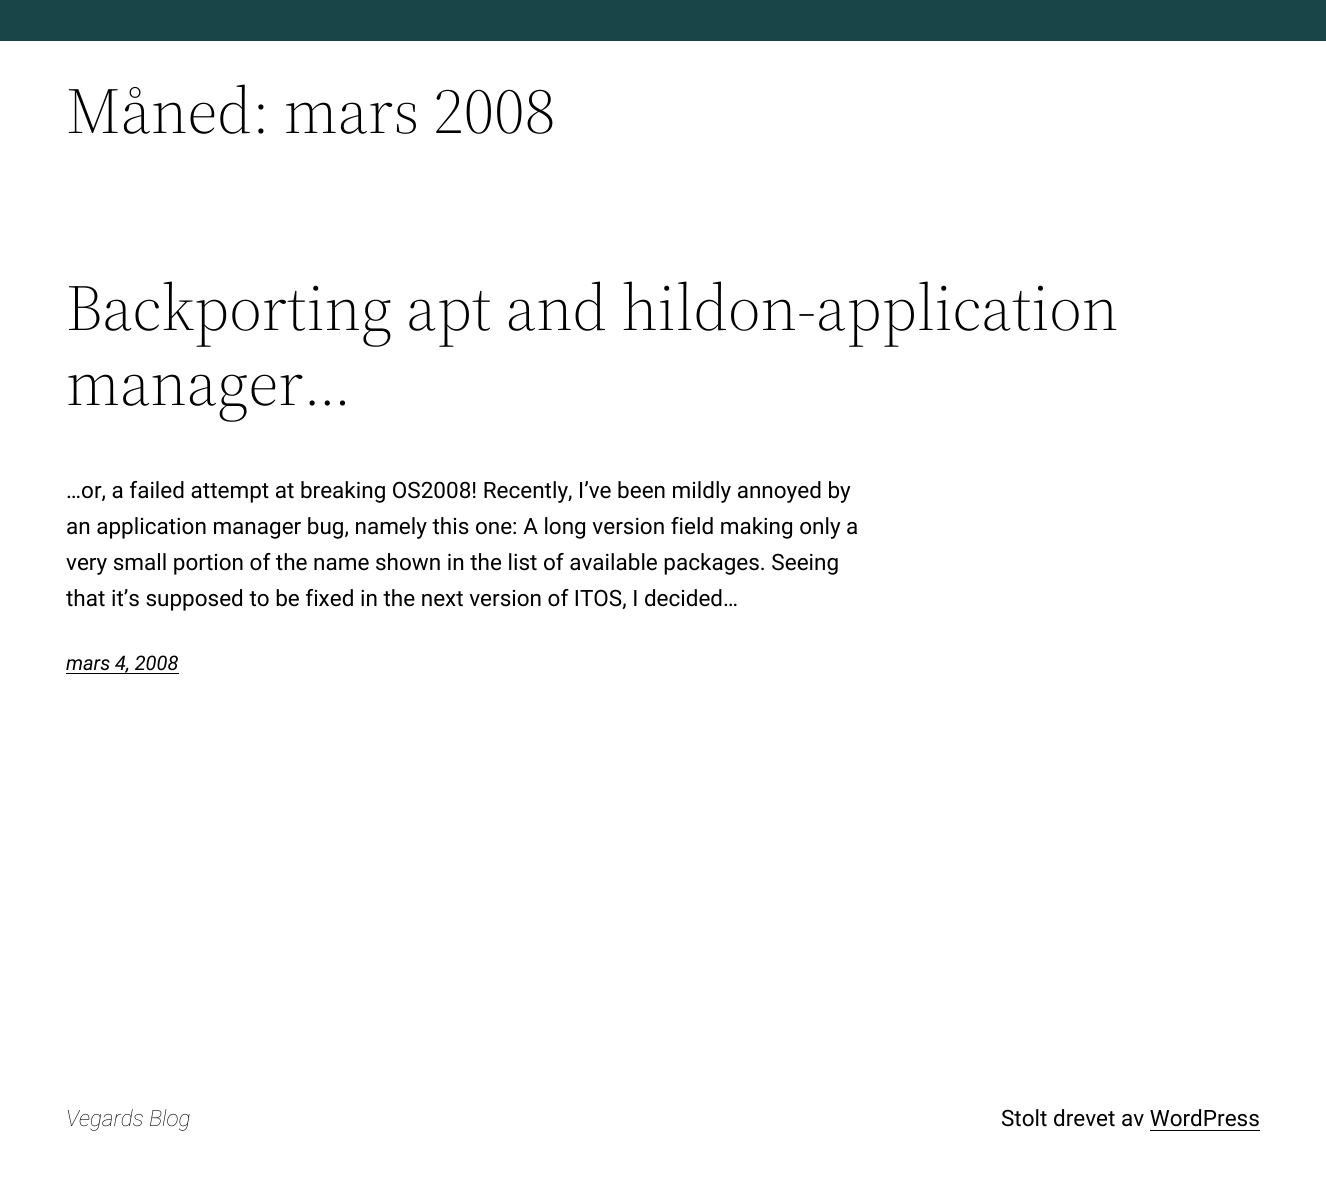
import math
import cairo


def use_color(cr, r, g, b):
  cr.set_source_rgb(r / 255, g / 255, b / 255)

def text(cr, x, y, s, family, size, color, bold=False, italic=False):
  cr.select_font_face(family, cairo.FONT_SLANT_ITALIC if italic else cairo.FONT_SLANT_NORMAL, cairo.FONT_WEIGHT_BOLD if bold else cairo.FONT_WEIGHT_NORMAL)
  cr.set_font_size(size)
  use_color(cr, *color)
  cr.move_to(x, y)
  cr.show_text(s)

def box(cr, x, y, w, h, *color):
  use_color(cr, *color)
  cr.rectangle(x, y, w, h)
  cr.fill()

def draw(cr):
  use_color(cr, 255, 255, 255)
  cr.paint()
  box(cr, 0, 0, 1326, 41, 26, 69, 72)
  box(cr, 66, 673, 113, 1, 0, 0, 0)
  box(cr, 1150, 1130, 110, 1, 0, 0, 0)
  text(cr, 66, 133, "Måned: mars 2008", "Source Serif 4 Light", 65, (0, 0, 0))
  text(cr, 66, 330, "Backporting apt and hildon-application", "Source Serif 4 Light", 65, (0, 0, 0))
  text(cr, 66, 405, "manager…", "Source Serif 4 Light", 65, (0, 0, 0))
  text(cr, 66, 498, "…or, a failed attempt at breaking OS2008! Recently, I’ve been mildly annoyed by", "Roboto", 22.5, (0, 0, 0))
  text(cr, 66, 534, "an application manager bug, namely this one: A long version field making only a", "Roboto", 22.5, (0, 0, 0))
  text(cr, 66, 570, "very small portion of the name shown in the list of available packages. Seeing", "Roboto", 22.5, (0, 0, 0))
  text(cr, 66, 606, "that it’s supposed to be fixed in the next version of ITOS, I decided…", "Roboto", 22.5, (0, 0, 0))
  text(cr, 66, 670, "mars 4, 2008", "Roboto", 20, (0, 0, 0), italic=True)
  text(cr, 66, 1126, "Vegards Blog", "Roboto Thin", 22.5, (0, 0, 0), italic=True)
  text(cr, 1001, 1126, "Stolt drevet av WordPress", "Roboto", 22.5, (0, 0, 0))


surface = cairo.ImageSurface(cairo.FORMAT_RGB24, 1326, 1196)
cr = cairo.Context(surface)
options = cairo.FontOptions()
options.set_hint_metrics(cairo.HINT_METRICS_OFF)
options.set_hint_style(cairo.HINT_STYLE_NONE)
cr.set_font_options(options)
cr.set_miter_limit(4)
draw(cr)
surface.write_to_png("out.png")
